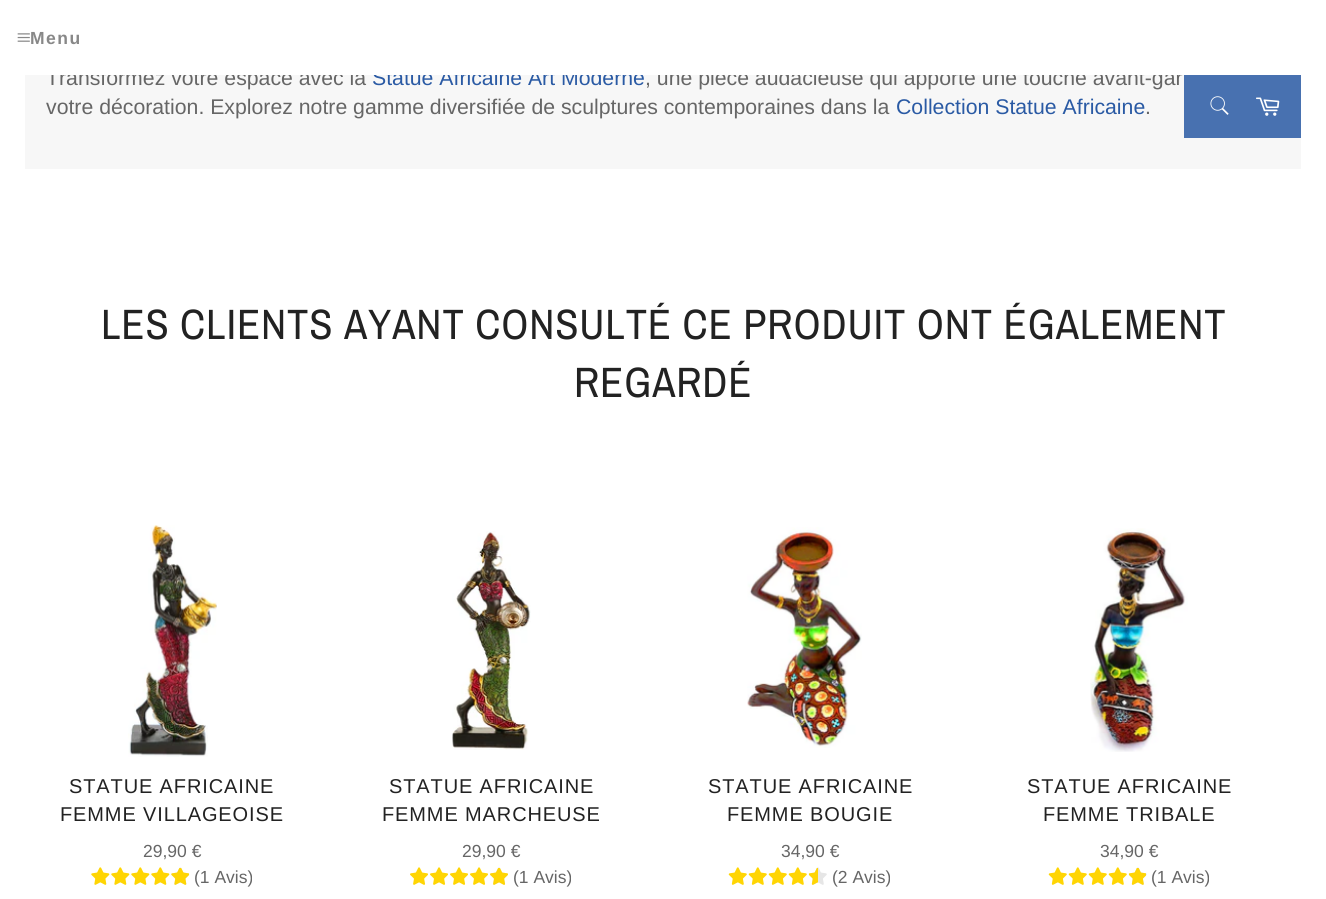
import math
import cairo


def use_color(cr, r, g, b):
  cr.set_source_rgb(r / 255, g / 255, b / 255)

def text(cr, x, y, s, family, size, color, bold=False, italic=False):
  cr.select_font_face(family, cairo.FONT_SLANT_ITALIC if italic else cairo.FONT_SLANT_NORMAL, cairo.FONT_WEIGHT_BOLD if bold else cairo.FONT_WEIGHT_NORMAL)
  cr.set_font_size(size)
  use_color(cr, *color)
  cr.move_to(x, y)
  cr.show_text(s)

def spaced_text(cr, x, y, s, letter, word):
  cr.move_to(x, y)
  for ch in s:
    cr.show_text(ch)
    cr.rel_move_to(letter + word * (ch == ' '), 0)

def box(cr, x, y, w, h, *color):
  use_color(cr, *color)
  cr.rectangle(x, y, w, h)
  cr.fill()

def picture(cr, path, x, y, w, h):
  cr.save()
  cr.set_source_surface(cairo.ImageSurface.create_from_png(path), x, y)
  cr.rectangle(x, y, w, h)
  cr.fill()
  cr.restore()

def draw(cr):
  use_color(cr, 255, 255, 255)
  cr.paint()
  picture(cr, "img_01.png", 17, 33, 13, 9)
  box(cr, 25, 75, 1276, 94, 247, 247, 247)
  cr.set_source_rgba(0.165, 0.353, 0.643, 0.85)
  cr.rectangle(1184, 75, 117, 63)
  cr.fill()
  picture(cr, "img_02.png", 1210, 96, 19, 19)
  picture(cr, "img_03.png", 1256, 97, 24, 19)
  picture(cr, "img_04.png", 128, 525, 89, 232)
  picture(cr, "img_05.png", 91, 867, 19, 18)
  picture(cr, "img_05.png", 111, 867, 19, 18)
  picture(cr, "img_05.png", 131, 867, 19, 18)
  picture(cr, "img_05.png", 151, 867, 19, 18)
  picture(cr, "img_06.png", 171, 867, 19, 18)
  picture(cr, "img_07.png", 171, 868, 18, 17)
  picture(cr, "img_08.png", 452, 531, 79, 219)
  picture(cr, "img_09.png", 410, 867, 19, 18)
  picture(cr, "img_09.png", 430, 867, 19, 18)
  picture(cr, "img_09.png", 450, 867, 19, 18)
  picture(cr, "img_09.png", 470, 867, 19, 18)
  picture(cr, "img_10.png", 490, 867, 18, 18)
  picture(cr, "img_11.png", 490, 868, 18, 17)
  picture(cr, "img_12.png", 747, 527, 115, 221)
  picture(cr, "img_13.png", 728, 867, 19, 18)
  picture(cr, "img_13.png", 748, 867, 19, 18)
  picture(cr, "img_13.png", 768, 867, 19, 18)
  picture(cr, "img_13.png", 788, 867, 19, 18)
  picture(cr, "img_14.png", 808, 867, 19, 18)
  picture(cr, "img_15.png", 809, 868, 9, 17)
  picture(cr, "img_16.png", 1090, 528, 98, 224)
  picture(cr, "img_13.png", 1048, 867, 19, 18)
  picture(cr, "img_13.png", 1068, 867, 19, 18)
  picture(cr, "img_13.png", 1088, 867, 19, 18)
  picture(cr, "img_13.png", 1108, 867, 19, 18)
  picture(cr, "img_14.png", 1128, 867, 19, 18)
  picture(cr, "img_17.png", 1129, 868, 17, 17)
  cr.select_font_face("Liberation Sans", cairo.FONT_SLANT_NORMAL, cairo.FONT_WEIGHT_BOLD)
  cr.set_font_size(17.5)
  use_color(cr, 136, 136, 136)
  spaced_text(cr, 30, 44, "Menu", 1.5, 0)
  text(cr, 46, 85, "Transformez votre espace avec la", "Liberation Sans", 21.25, (102, 102, 102))
  text(cr, 372, 85, "Statue Africaine Art Moderne", "Liberation Sans", 21.25, (42, 90, 164))
  text(cr, 645, 85, ", une pièce audacieuse qui apporte une touche avant-gar", "Liberation Sans", 21.25, (102, 102, 102))
  box(cr, 46, 69, 1137, 6, 255, 255, 255)
  text(cr, 46, 114, "votre décoration. Explorez notre gamme diversifiée de sculptures contemporaines dans la", "Liberation Sans", 21.25, (102, 102, 102))
  text(cr, 896, 114, "Collection Statue Africaine", "Liberation Sans", 21.25, (42, 90, 164))
  text(cr, 1145, 114, ".", "Liberation Sans", 21.25, (102, 102, 102))
  cr.select_font_face("Archivo Narrow")
  cr.set_font_size(42.5)
  use_color(cr, 34, 34, 34)
  spaced_text(cr, 101, 339, "LES CLIENTS AYANT CONSULTÉ CE PRODUIT ONT ÉGALEMENT", 0.88, 0)
  spaced_text(cr, 574, 397, "REGARDÉ", 0.88, 0)
  cr.select_font_face("Liberation Sans")
  cr.set_font_size(20)
  spaced_text(cr, 69, 793, "STATUE AFRICAINE", 0.88, 0)
  spaced_text(cr, 60, 821, "FEMME VILLAGEOISE", 0.88, 0)
  text(cr, 143, 857, "29,90 €", "Liberation Sans", 17.5, (102, 102, 102))
  text(cr, 194, 883, "(1 Avis)", "Liberation Sans", 17.5, (102, 102, 102))
  cr.set_font_size(20)
  use_color(cr, 34, 34, 34)
  spaced_text(cr, 389, 793, "STATUE AFRICAINE", 0.88, 0)
  spaced_text(cr, 382, 821, "FEMME MARCHEUSE", 0.88, 0)
  text(cr, 462, 857, "29,90 €", "Liberation Sans", 17.5, (102, 102, 102))
  text(cr, 513, 883, "(1 Avis)", "Liberation Sans", 17.5, (102, 102, 102))
  cr.set_font_size(20)
  use_color(cr, 34, 34, 34)
  spaced_text(cr, 708, 793, "STATUE AFRICAINE", 0.88, 0)
  spaced_text(cr, 727, 821, "FEMME BOUGIE", 0.88, 0)
  text(cr, 781, 857, "34,90 €", "Liberation Sans", 17.5, (102, 102, 102))
  text(cr, 832, 883, "(2 Avis)", "Liberation Sans", 17.5, (102, 102, 102))
  cr.set_font_size(20)
  use_color(cr, 34, 34, 34)
  spaced_text(cr, 1027, 793, "STATUE AFRICAINE", 0.88, 0)
  spaced_text(cr, 1043, 821, "FEMME TRIBALE", 0.88, 0)
  text(cr, 1100, 857, "34,90 €", "Liberation Sans", 17.5, (102, 102, 102))
  text(cr, 1151, 883, "(1 Avis)", "Liberation Sans", 17.5, (102, 102, 102))


surface = cairo.ImageSurface(cairo.FORMAT_RGB24, 1326, 899)
cr = cairo.Context(surface)
options = cairo.FontOptions()
options.set_hint_metrics(cairo.HINT_METRICS_OFF)
options.set_hint_style(cairo.HINT_STYLE_NONE)
cr.set_font_options(options)
cr.set_miter_limit(4)
draw(cr)
surface.write_to_png("out.png")
